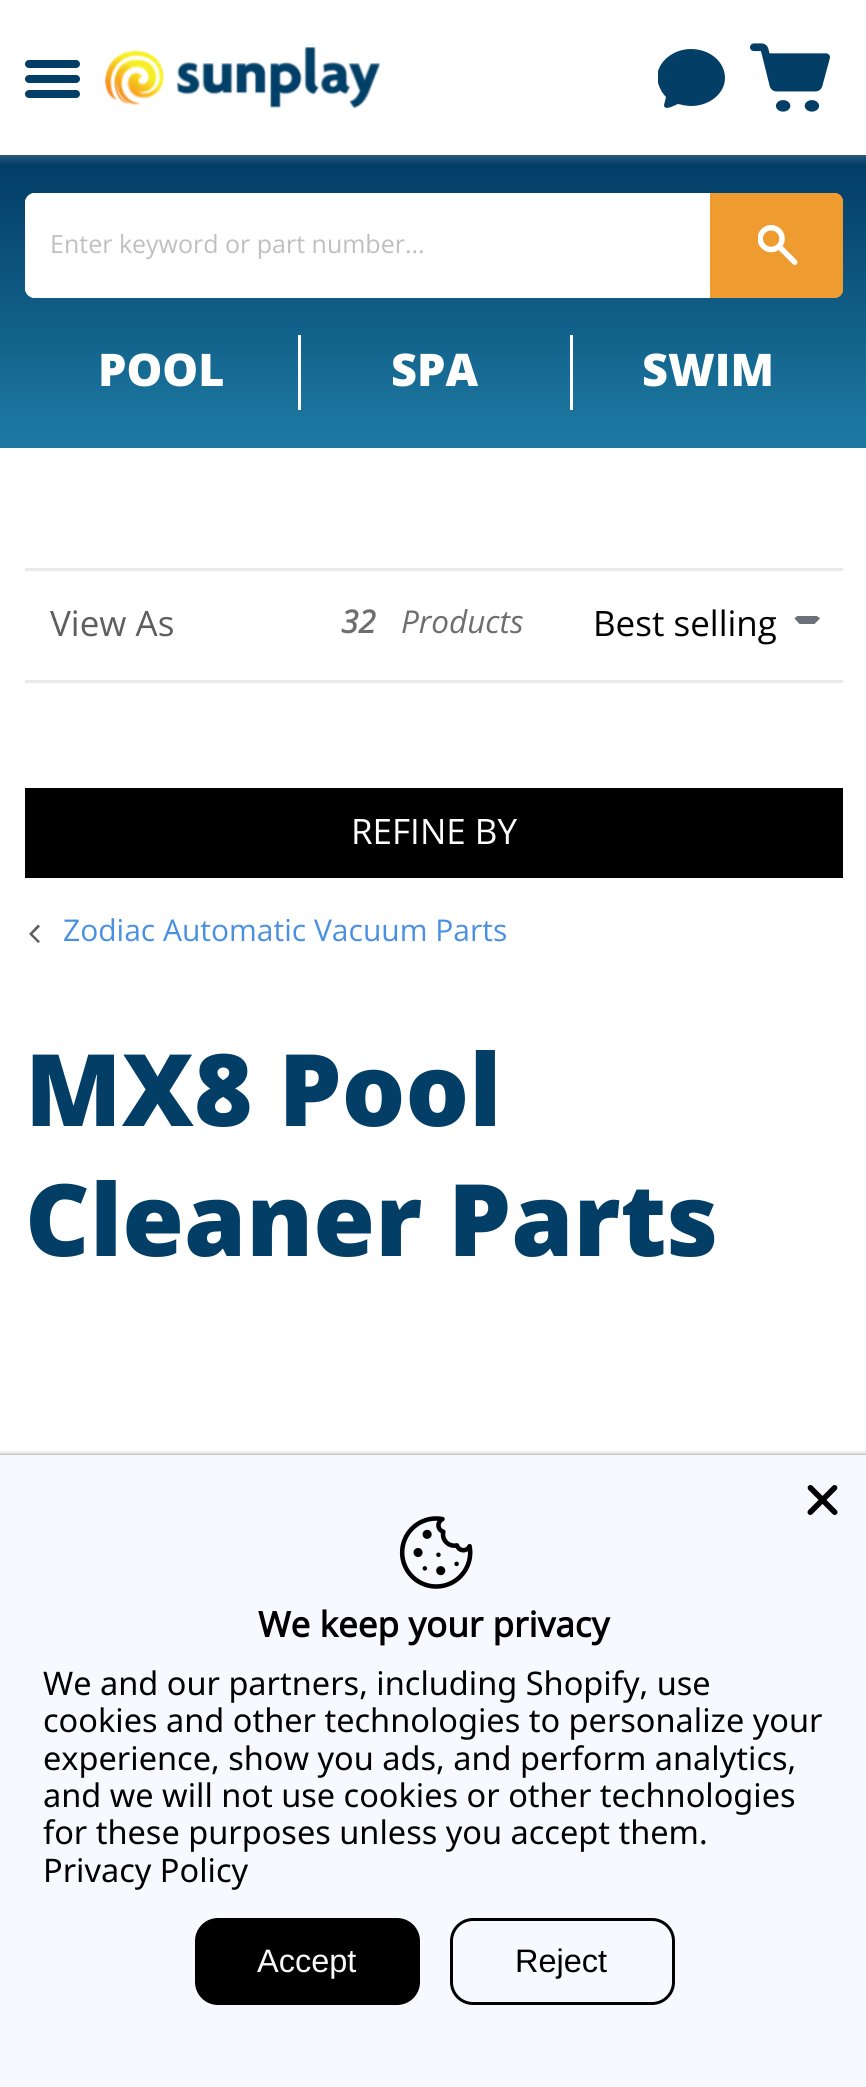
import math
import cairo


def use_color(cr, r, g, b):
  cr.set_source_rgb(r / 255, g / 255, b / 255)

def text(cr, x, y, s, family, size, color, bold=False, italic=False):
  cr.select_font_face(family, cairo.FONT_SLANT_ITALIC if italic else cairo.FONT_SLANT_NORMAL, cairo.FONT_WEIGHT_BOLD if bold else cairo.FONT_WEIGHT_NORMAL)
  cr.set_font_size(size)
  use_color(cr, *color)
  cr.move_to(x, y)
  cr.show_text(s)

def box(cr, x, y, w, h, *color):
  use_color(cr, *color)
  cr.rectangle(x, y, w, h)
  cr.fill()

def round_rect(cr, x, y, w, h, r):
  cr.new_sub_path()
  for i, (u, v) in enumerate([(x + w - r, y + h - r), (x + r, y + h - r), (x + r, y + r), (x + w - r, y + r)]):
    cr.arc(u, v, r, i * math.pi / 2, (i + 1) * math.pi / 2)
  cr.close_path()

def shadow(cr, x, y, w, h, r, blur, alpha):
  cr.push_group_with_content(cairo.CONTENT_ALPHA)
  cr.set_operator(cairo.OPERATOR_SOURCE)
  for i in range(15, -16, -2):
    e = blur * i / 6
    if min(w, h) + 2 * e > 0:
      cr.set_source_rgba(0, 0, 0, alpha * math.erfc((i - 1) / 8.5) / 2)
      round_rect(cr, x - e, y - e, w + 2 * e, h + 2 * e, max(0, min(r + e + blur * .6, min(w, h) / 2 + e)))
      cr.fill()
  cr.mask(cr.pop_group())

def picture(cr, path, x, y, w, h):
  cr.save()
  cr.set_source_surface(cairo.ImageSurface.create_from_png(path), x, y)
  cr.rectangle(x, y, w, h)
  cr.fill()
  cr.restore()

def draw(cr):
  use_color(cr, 255, 255, 255)
  cr.paint()
  gradient = cairo.LinearGradient(434, 155, 434, 448)
  gradient.add_color_stop_rgba(0.05, 0.012, 0.243, 0.404, 1)
  gradient.add_color_stop_rgba(0.95, 0.11, 0.471, 0.631, 1)
  cr.set_source(gradient)
  cr.rectangle(0, 155, 866, 293)
  cr.fill()
  cr.save()
  cr.rectangle(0, 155, 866, 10)
  cr.clip()
  use_color(cr, 217, 217, 217)
  shadow(cr, 0, 3, 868, 155, 0, 5, 0.25)
  cr.restore()
  use_color(cr, 3, 62, 103)
  round_rect(cr, 25, 60, 55, 8, 4)
  cr.fill()
  round_rect(cr, 25, 75, 55, 8, 4)
  cr.fill()
  round_rect(cr, 25, 90, 55, 8, 4)
  cr.fill()
  picture(cr, "img_01.png", 105, 47, 275, 62)
  cr.save()
  cr.rectangle(658, 45, 67, 68)
  cr.clip()
  cr.set_fill_rule(cairo.FILL_RULE_EVEN_ODD)
  cr.new_path()
  cr.move_to(666, 97)
  cr.line_to(664, 105)
  cr.curve_to(664, 112, 677, 104, 678, 104)
  cr.curve_to(682, 105, 687, 106, 691, 106)
  cr.curve_to(710, 106, 725, 93, 725, 78)
  cr.curve_to(725, 62, 710, 49, 691, 49)
  cr.curve_to(673, 49, 657, 62, 657, 78)
  cr.curve_to(658, 85, 661, 92, 666, 97)
  cr.close_path()
  cr.fill()
  cr.restore()
  picture(cr, "img_02.png", 750, 43, 80, 69)
  use_color(cr, 255, 255, 255)
  round_rect(cr, 25, 193, 818, 105, 10)
  cr.fill()
  round_rect(cr, 25, 193, 685, 105, 10)
  cr.fill()
  use_color(cr, 238, 155, 48)
  cr.new_path()
  cr.move_to(711.5, 194.5)
  cr.line_to(835, 194.5)
  cr.curve_to(838.5, 194.5, 841.5, 197.5, 841.5, 201)
  cr.line_to(841.5, 290)
  cr.curve_to(841.5, 293.5, 838.5, 296.5, 835, 296.5)
  cr.line_to(711.5, 296.5)
  cr.close_path()
  cr.fill_preserve()
  cr.set_line_width(3)
  cr.stroke()
  picture(cr, "img_03.png", 758, 225, 40, 40)
  box(cr, 298, 335, 3, 75, 255, 255, 255)
  box(cr, 570, 335, 3, 75, 255, 255, 255)
  box(cr, 25, 568, 818, 3, 232, 233, 235)
  box(cr, 25, 680, 818, 3, 232, 233, 235)
  use_color(cr, 105, 114, 123)
  cr.new_path()
  cr.move_to(820, 618.5)
  cr.line_to(814.5, 624)
  cr.line_to(799.5, 624)
  cr.line_to(794.5, 618.5)
  cr.curve_to(795, 617.5, 796.5, 616.5, 797.5, 616)
  cr.line_to(816.5, 616)
  cr.curve_to(818, 616.5, 819, 617.5, 820, 618.5)
  cr.close_path()
  cr.fill()
  box(cr, 25, 788, 818, 90, 0, 0, 0)
  use_color(cr, 94, 94, 94)
  cr.set_fill_rule(cairo.FILL_RULE_EVEN_ODD)
  cr.new_path()
  cr.move_to(40, 926.5)
  cr.line_to(38, 924.5)
  cr.line_to(29, 934)
  cr.line_to(38, 943)
  cr.line_to(40, 941.5)
  cr.line_to(32.5, 934)
  cr.close_path()
  cr.fill()
  use_color(cr, 0, 0, 0)
  shadow(cr, 0, 1455, 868, 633, 0, 2.5, 0.5)
  box(cr, 0, 1455, 866, 632, 248, 248, 255)
  picture(cr, "img_04.png", 807, 1485, 31, 30)
  picture(cr, "img_05.png", 399, 1516, 74, 73)
  use_color(cr, 0, 0, 0)
  round_rect(cr, 195, 1918, 225, 87, 23)
  cr.fill()
  round_rect(cr, 451.5, 1919.5, 222, 84, 21.5)
  cr.stroke()
  text(cr, 50, 253, "Enter keyword or part number...", "Open Sans", 25, (191, 191, 191))
  text(cr, 98, 386, "POOL", "Open Sans ExtraBold", 45, (255, 255, 255))
  text(cr, 391, 386, "SPA", "Open Sans ExtraBold", 45, (255, 255, 255))
  text(cr, 642, 386, "SWIM", "Open Sans ExtraBold", 45, (255, 255, 255))
  text(cr, 50, 636, "View As", "Open Sans", 35, (94, 94, 94))
  text(cr, 341, 633, "32", "Open Sans", 31.5, (110, 110, 110), bold=True, italic=True)
  text(cr, 401, 633, "Products", "Open Sans", 31.5, (110, 110, 110), italic=True)
  text(cr, 593, 636, "Best selling", "Open Sans", 35, (0, 0, 0))
  text(cr, 351, 844, "REFINE BY", "Open Sans", 35, (255, 255, 255))
  text(cr, 63, 941, "Zodiac Automatic Vacuum Parts", "Open Sans", 30, (74, 144, 226))
  text(cr, 25, 1126, "MX8 Pool", "Open Sans ExtraBold", 100, (3, 62, 103))
  text(cr, 25, 1256, "Cleaner Parts", "Open Sans ExtraBold", 100, (3, 62, 103))
  text(cr, 258, 1637, "We keep your privacy", "Noto Sans", 35, (0, 0, 0), bold=True)
  text(cr, 43, 1695, "We and our partners, including Shopify, use", "Noto Sans", 32.5, (0, 0, 0))
  text(cr, 43, 1732, "cookies and other technologies to personalize your", "Noto Sans", 32.5, (0, 0, 0))
  text(cr, 43, 1770, "experience, show you ads, and perform analytics,", "Noto Sans", 32.5, (0, 0, 0))
  text(cr, 43, 1807, "and we will not use cookies or other technologies", "Noto Sans", 32.5, (0, 0, 0))
  text(cr, 43, 1844, "for these purposes unless you accept them.", "Noto Sans", 32.5, (0, 0, 0))
  text(cr, 43, 1882, "Privacy Policy", "Noto Sans", 32.5, (0, 0, 0))
  text(cr, 257, 1972, "Accept", "Liberation Sans", 32.5, (248, 248, 248))
  text(cr, 515, 1972, "Reject", "Liberation Sans", 32.5, (0, 0, 0))


surface = cairo.ImageSurface(cairo.FORMAT_RGB24, 866, 2087)
cr = cairo.Context(surface)
options = cairo.FontOptions()
options.set_hint_metrics(cairo.HINT_METRICS_OFF)
options.set_hint_style(cairo.HINT_STYLE_NONE)
cr.set_font_options(options)
cr.set_miter_limit(4)
draw(cr)
surface.write_to_png("out.png")
